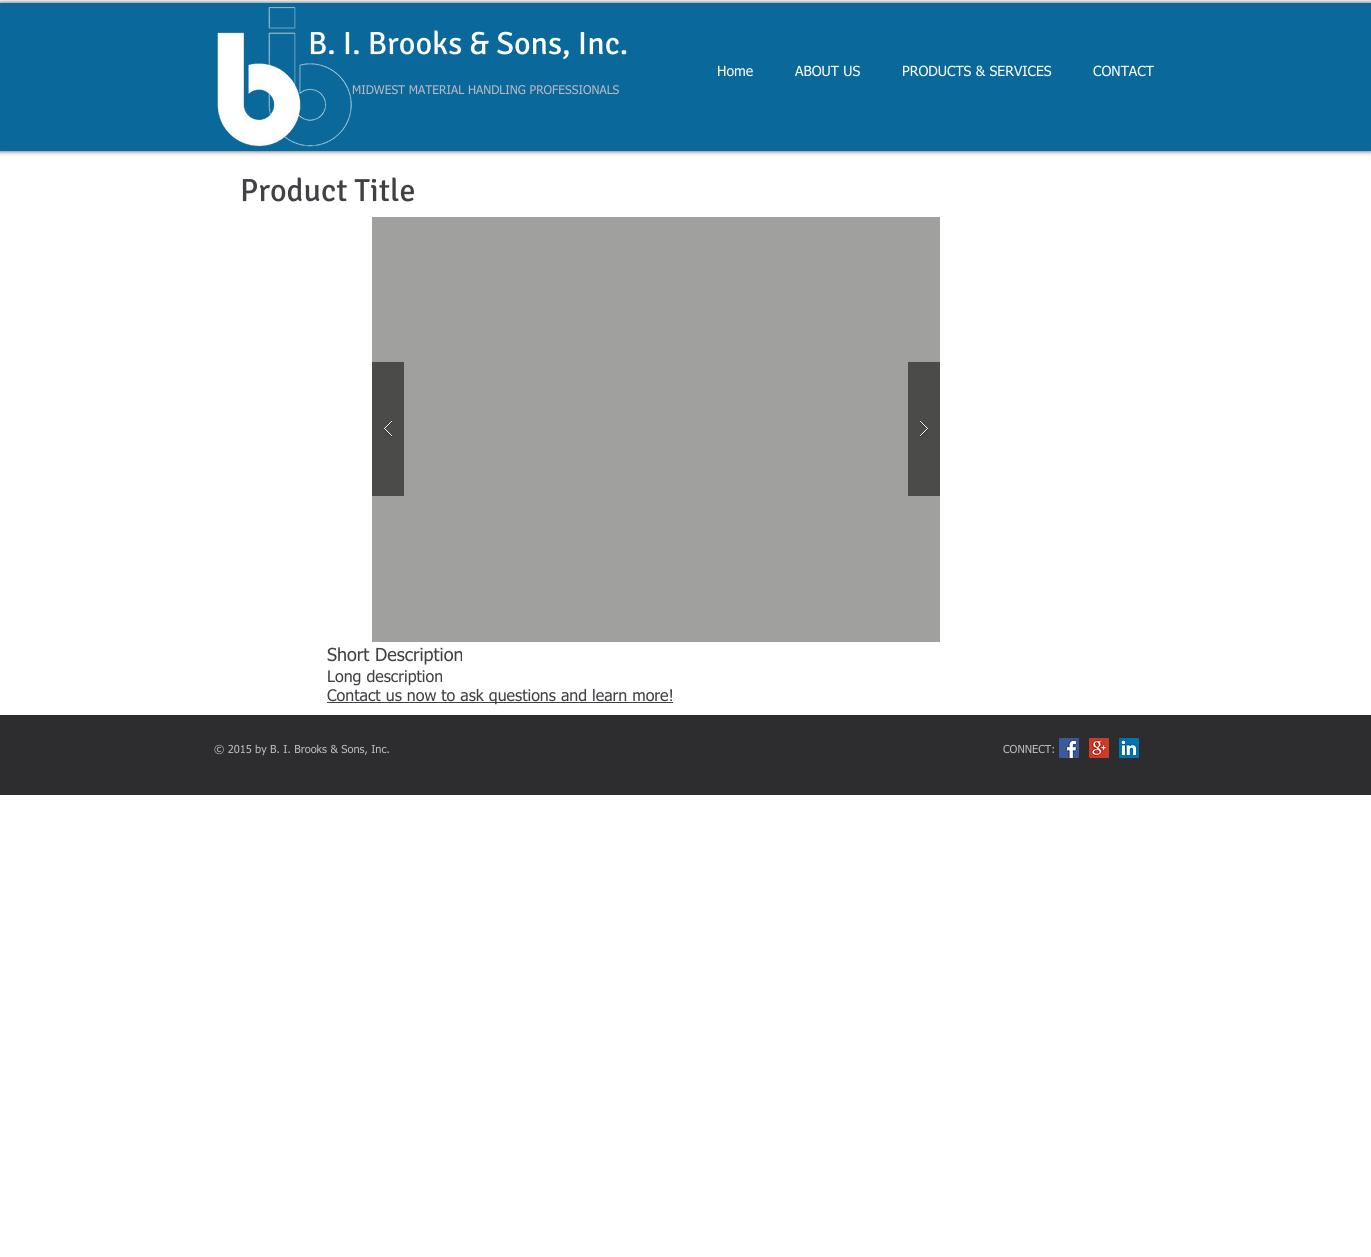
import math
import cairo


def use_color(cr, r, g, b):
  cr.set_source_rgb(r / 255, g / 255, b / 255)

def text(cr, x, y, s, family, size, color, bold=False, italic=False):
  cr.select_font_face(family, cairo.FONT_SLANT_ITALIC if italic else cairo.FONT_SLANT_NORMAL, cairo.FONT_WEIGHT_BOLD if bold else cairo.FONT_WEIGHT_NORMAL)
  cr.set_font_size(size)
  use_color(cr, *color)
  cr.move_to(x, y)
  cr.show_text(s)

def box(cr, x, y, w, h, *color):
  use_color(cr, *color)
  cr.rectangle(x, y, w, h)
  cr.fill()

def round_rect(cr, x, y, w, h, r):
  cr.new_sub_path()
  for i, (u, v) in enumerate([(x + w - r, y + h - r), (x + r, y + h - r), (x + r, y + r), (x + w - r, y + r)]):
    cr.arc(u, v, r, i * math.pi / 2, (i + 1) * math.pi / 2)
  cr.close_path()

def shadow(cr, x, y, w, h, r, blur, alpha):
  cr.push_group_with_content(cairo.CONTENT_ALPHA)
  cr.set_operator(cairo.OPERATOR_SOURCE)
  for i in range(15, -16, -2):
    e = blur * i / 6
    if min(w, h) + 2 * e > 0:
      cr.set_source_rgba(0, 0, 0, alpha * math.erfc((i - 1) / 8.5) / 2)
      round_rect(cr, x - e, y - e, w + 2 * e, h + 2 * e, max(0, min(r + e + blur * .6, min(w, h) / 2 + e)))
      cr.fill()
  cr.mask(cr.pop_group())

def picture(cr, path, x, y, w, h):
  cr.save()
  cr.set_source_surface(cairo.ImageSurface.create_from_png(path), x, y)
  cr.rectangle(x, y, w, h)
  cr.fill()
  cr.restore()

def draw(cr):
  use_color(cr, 255, 255, 255)
  cr.paint()
  use_color(cr, 0, 0, 0)
  shadow(cr, 0, 3, 1371, 148, 0, 2.5, 0.7)
  box(cr, 0, 3, 1371, 148, 11, 104, 154)
  box(cr, 372, 217, 568, 425, 160, 160, 159)
  box(cr, 372, 362, 32, 134, 75, 75, 74)
  picture(cr, "img_02.png", 384, 421, 8, 16)
  box(cr, 908, 362, 32, 134, 75, 75, 74)
  picture(cr, "img_03.png", 920, 421, 8, 16)
  box(cr, 327, 702, 346, 1, 64, 65, 68)
  box(cr, 0, 715, 1371, 80, 45, 45, 47)
  picture(cr, "img_04.png", 1059, 738, 20, 20)
  picture(cr, "img_05.png", 1089, 738, 20, 20)
  picture(cr, "img_06.png", 1119, 738, 20, 20)
  text(cr, 308, 54, "B. I. Brooks & Sons, Inc.", "Signika", 32, (255, 255, 255))
  picture(cr, "img_01.png", 217, 7, 135, 140)
  text(cr, 717, 76, "Home", "tahoma", 14, (255, 255, 255))
  text(cr, 795, 76, "ABOUT US", "tahoma", 14, (255, 255, 255))
  text(cr, 902, 76, "PRODUCTS & SERVICES", "tahoma", 14, (255, 255, 255))
  text(cr, 1093, 76, "CONTACT", "tahoma", 14, (255, 255, 255))
  text(cr, 352, 94, "MIDWEST MATERIAL HANDLING PROFESSIONALS", "tahoma", 12, (184, 187, 193))
  text(cr, 240, 201, "Product Title", "Signika", 32, (64, 65, 68))
  text(cr, 327, 661, "Short Description", "tahoma", 18, (64, 65, 68))
  text(cr, 327, 682, "Long description", "tahoma", 16, (64, 65, 68))
  text(cr, 327, 701, "Contact us now to ask questions and learn more!", "tahoma", 16, (64, 65, 68))
  text(cr, 214, 753, "© 2015 by B. I. Brooks & Sons, Inc.", "tahoma", 11, (184, 187, 193))
  text(cr, 1003, 753, "CONNECT:", "tahoma", 11, (184, 187, 193))


surface = cairo.ImageSurface(cairo.FORMAT_RGB24, 1371, 1257)
cr = cairo.Context(surface)
options = cairo.FontOptions()
options.set_hint_metrics(cairo.HINT_METRICS_OFF)
options.set_hint_style(cairo.HINT_STYLE_NONE)
cr.set_font_options(options)
cr.set_miter_limit(4)
draw(cr)
surface.write_to_png("out.png")
